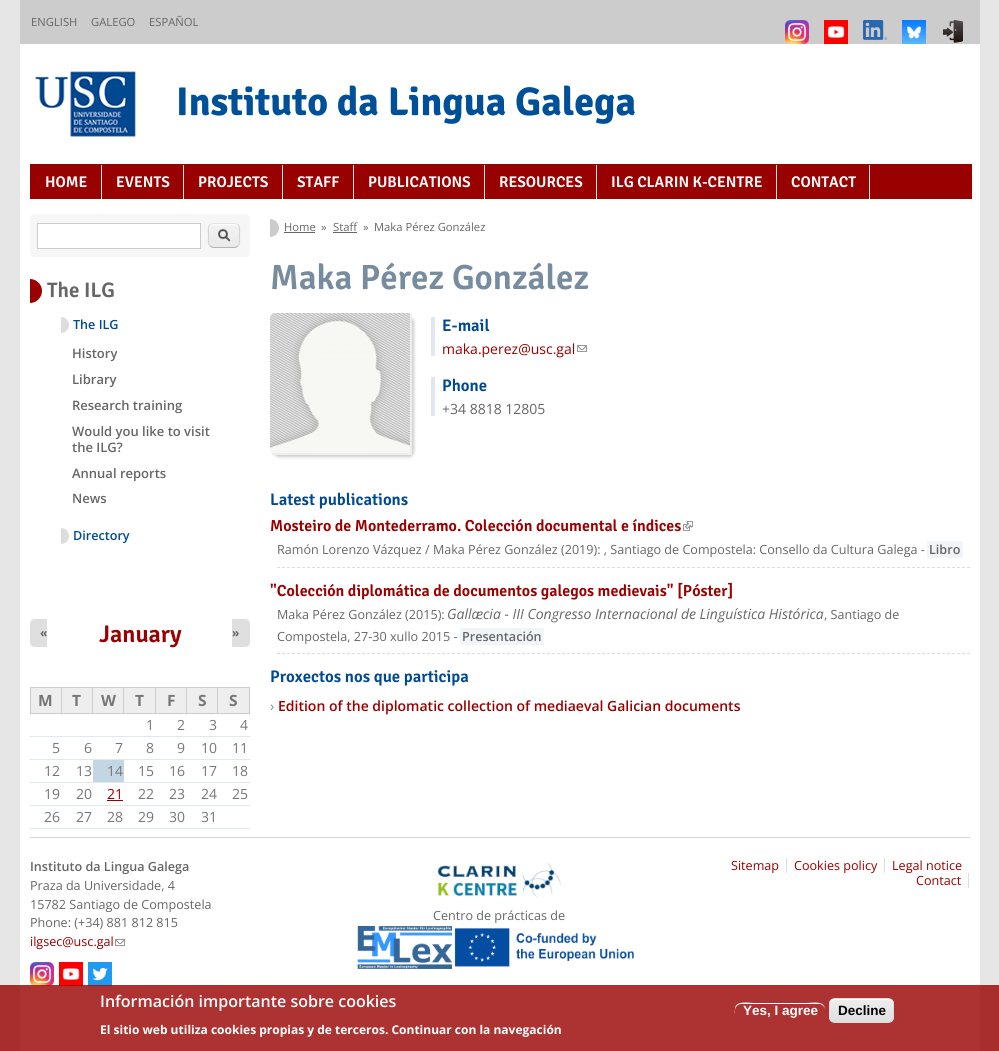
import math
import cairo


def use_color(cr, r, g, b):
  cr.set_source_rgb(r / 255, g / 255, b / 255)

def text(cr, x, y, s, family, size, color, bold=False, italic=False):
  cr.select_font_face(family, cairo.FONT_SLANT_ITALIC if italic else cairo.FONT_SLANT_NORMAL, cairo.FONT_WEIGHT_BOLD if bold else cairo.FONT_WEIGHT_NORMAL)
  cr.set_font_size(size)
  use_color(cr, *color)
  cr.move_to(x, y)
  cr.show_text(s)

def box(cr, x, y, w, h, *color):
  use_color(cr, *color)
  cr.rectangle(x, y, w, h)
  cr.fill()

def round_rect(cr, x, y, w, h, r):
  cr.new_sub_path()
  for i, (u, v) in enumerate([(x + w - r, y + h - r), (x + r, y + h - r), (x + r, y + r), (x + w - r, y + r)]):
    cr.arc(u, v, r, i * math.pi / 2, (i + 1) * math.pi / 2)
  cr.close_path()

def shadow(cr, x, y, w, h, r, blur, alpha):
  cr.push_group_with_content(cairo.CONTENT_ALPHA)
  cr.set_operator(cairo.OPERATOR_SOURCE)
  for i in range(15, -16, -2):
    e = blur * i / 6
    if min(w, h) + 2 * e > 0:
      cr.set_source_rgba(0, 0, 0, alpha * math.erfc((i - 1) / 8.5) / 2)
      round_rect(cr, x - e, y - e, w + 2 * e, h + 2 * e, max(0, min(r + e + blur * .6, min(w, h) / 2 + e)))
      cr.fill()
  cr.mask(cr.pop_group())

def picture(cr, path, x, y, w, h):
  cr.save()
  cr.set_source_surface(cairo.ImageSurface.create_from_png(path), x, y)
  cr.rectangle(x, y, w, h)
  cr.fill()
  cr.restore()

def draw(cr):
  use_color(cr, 230, 230, 230)
  cr.paint()
  box(cr, 20, 44, 960, 1007, 255, 255, 255)
  box(cr, 20, 0, 960, 44, 204, 204, 204)
  picture(cr, "img_01.png", 785, 20, 24, 24)
  picture(cr, "img_02.png", 824, 20, 24, 24)
  picture(cr, "img_03.png", 863, 20, 24, 20)
  picture(cr, "img_04.png", 902, 20, 24, 24)
  picture(cr, "img_05.png", 943, 20, 20, 23)
  picture(cr, "img_06.png", 35, 69, 103, 68)
  box(cr, 30, 164, 942, 35, 153, 0, 0)
  box(cr, 101, 165, 1, 34, 227, 227, 227)
  box(cr, 183, 165, 1, 34, 227, 227, 227)
  box(cr, 282, 165, 1, 34, 227, 227, 227)
  box(cr, 353, 165, 1, 34, 227, 227, 227)
  box(cr, 484, 165, 1, 34, 227, 227, 227)
  box(cr, 596, 165, 1, 34, 227, 227, 227)
  box(cr, 776, 165, 1, 34, 227, 227, 227)
  box(cr, 869, 165, 1, 34, 227, 227, 227)
  use_color(cr, 246, 246, 246)
  round_rect(cr, 30, 214, 220, 43, 4)
  cr.fill()
  use_color(cr, 255, 255, 255)
  cr.rectangle(37.5, 223.5, 163, 25)
  cr.fill_preserve()
  use_color(cr, 204, 204, 204)
  cr.set_line_width(1)
  cr.stroke()
  picture(cr, "img_07.png", 208, 226, 32, 22)
  use_color(cr, 255, 255, 255)
  cr.set_fill_rule(cairo.FILL_RULE_EVEN_ODD)
  cr.new_path()
  cr.move_to(214, 225)
  cr.line_to(231, 225)
  cr.curve_to(237.5, 225, 239, 226.5, 239, 230.5)
  cr.line_to(239, 229)
  cr.curve_to(239, 226, 237, 224, 234, 224)
  cr.line_to(214, 224)
  cr.curve_to(211, 224, 209, 226, 209, 229)
  cr.line_to(209, 234)
  cr.curve_to(209, 231, 209, 225, 214, 225)
  cr.close_path()
  cr.move_to(239, 242)
  cr.line_to(239, 243)
  cr.close_path()
  cr.fill()
  cr.new_path()
  cr.move_to(210, 225)
  cr.curve_to(211, 224, 212.5, 223.5, 214, 223.5)
  cr.line_to(234, 223.5)
  cr.curve_to(235.5, 223.5, 237, 224, 238, 225)
  use_color(cr, 228, 228, 228)
  cr.stroke()
  cr.new_path()
  cr.move_to(238, 225)
  cr.curve_to(240.5, 227.5, 239.5, 232.5, 239.5, 235.5)
  cr.curve_to(239.5, 238.5, 240.5, 243.5, 238, 246)
  use_color(cr, 210, 210, 210)
  cr.stroke()
  cr.new_path()
  cr.move_to(238, 246)
  cr.curve_to(237, 247, 235.5, 247.5, 234, 247.5)
  cr.line_to(214, 247.5)
  cr.curve_to(212.5, 247.5, 211, 247, 210, 246)
  use_color(cr, 180, 180, 180)
  cr.stroke()
  cr.new_path()
  cr.move_to(210, 246)
  cr.curve_to(207.5, 243.5, 208.5, 238.5, 208.5, 235.5)
  cr.curve_to(208.5, 232.5, 207.5, 227.5, 210, 225)
  use_color(cr, 210, 210, 210)
  cr.stroke()
  use_color(cr, 153, 0, 0)
  cr.new_path()
  cr.move_to(30, 279)
  cr.curve_to(36.5, 279, 42, 284.5, 42, 291)
  cr.curve_to(42, 297.5, 36.5, 303, 30, 303)
  cr.close_path()
  cr.fill()
  use_color(cr, 221, 221, 221)
  cr.new_path()
  cr.move_to(61, 317)
  cr.curve_to(65.5, 317, 69, 320.5, 69, 325)
  cr.curve_to(69, 329.5, 65.5, 333, 61, 333)
  cr.close_path()
  cr.fill()
  cr.new_path()
  cr.move_to(61, 528)
  cr.curve_to(65.5, 528, 69, 531.5, 69, 536)
  cr.curve_to(69, 540.5, 65.5, 544, 61, 544)
  cr.close_path()
  cr.fill()
  use_color(cr, 223, 223, 223)
  cr.new_path()
  cr.move_to(35, 619)
  cr.line_to(47, 619)
  cr.line_to(47, 647)
  cr.line_to(35, 647)
  cr.curve_to(32, 647, 30, 645, 30, 642)
  cr.line_to(30, 624)
  cr.curve_to(30, 621, 32, 619, 35, 619)
  cr.close_path()
  cr.fill()
  cr.new_path()
  cr.move_to(232, 619)
  cr.line_to(245, 619)
  cr.curve_to(248, 619, 250, 621, 250, 624)
  cr.line_to(250, 642)
  cr.curve_to(250, 645, 248, 647, 245, 647)
  cr.line_to(232, 647)
  cr.close_path()
  cr.fill()
  box(cr, 31, 688, 30, 25, 238, 238, 238)
  box(cr, 217, 687, 33, 1, 204, 204, 204)
  box(cr, 249, 687, 1, 27, 204, 204, 204)
  box(cr, 217, 713, 33, 1, 204, 204, 204)
  box(cr, 217, 687, 1, 27, 204, 204, 204)
  box(cr, 186, 687, 32, 1, 204, 204, 204)
  box(cr, 186, 713, 32, 1, 204, 204, 204)
  box(cr, 186, 687, 1, 27, 204, 204, 204)
  box(cr, 155, 687, 32, 1, 204, 204, 204)
  box(cr, 155, 713, 32, 1, 204, 204, 204)
  box(cr, 155, 687, 1, 27, 204, 204, 204)
  box(cr, 123, 687, 33, 1, 204, 204, 204)
  box(cr, 123, 713, 33, 1, 204, 204, 204)
  box(cr, 123, 687, 1, 27, 204, 204, 204)
  box(cr, 92, 687, 32, 1, 204, 204, 204)
  box(cr, 92, 713, 32, 1, 204, 204, 204)
  box(cr, 92, 687, 1, 27, 204, 204, 204)
  box(cr, 61, 687, 32, 1, 204, 204, 204)
  box(cr, 61, 713, 32, 1, 204, 204, 204)
  box(cr, 61, 687, 1, 27, 204, 204, 204)
  box(cr, 30, 687, 32, 1, 204, 204, 204)
  box(cr, 30, 713, 32, 1, 204, 204, 204)
  box(cr, 30, 687, 1, 27, 204, 204, 204)
  box(cr, 62, 688, 30, 25, 238, 238, 238)
  box(cr, 93, 688, 30, 25, 238, 238, 238)
  box(cr, 124, 688, 31, 25, 238, 238, 238)
  box(cr, 156, 688, 30, 25, 238, 238, 238)
  box(cr, 187, 688, 30, 25, 238, 238, 238)
  box(cr, 218, 688, 31, 25, 238, 238, 238)
  box(cr, 30, 736, 220, 1, 224, 232, 239)
  box(cr, 30, 759, 220, 1, 224, 232, 239)
  box(cr, 30, 782, 220, 1, 224, 232, 239)
  box(cr, 93, 760, 31, 22, 195, 214, 228)
  box(cr, 30, 805, 220, 1, 224, 232, 239)
  box(cr, 107, 800, 16, 1, 153, 0, 0)
  box(cr, 30, 828, 220, 1, 224, 232, 239)
  use_color(cr, 204, 204, 204)
  cr.new_path()
  cr.move_to(270, 219)
  cr.curve_to(275, 219, 279, 223, 279, 228)
  cr.curve_to(279, 233, 275, 237, 270, 237)
  cr.close_path()
  cr.fill()
  box(cr, 284, 232, 31, 1, 102, 102, 102)
  box(cr, 333, 232, 24, 1, 102, 102, 102)
  use_color(cr, 204, 204, 204)
  shadow(cr, 274, 317, 140, 140, 5, 1.5, 1)
  use_color(cr, 238, 238, 238)
  cr.set_fill_rule(cairo.FILL_RULE_WINDING)
  cr.new_path()
  cr.move_to(272, 453)
  cr.line_to(272, 455)
  cr.line_to(412, 455)
  cr.line_to(412, 315)
  cr.line_to(410, 315)
  cr.line_to(410, 453)
  cr.close_path()
  cr.fill()
  picture(cr, "img_08.png", 270, 313, 140, 140)
  box(cr, 431, 317, 4, 39, 224, 232, 239)
  picture(cr, "img_09.png", 577, 345, 10, 7)
  box(cr, 431, 377, 4, 39, 224, 232, 239)
  cr.new_path()
  cr.move_to(277, 567.5)
  cr.line_to(970, 567.5)
  use_color(cr, 221, 221, 221)
  cr.set_dash([3, 2])
  cr.stroke()
  picture(cr, "img_10.png", 683, 521, 10, 10)
  box(cr, 927, 541, 36, 17, 241, 245, 249)
  cr.new_path()
  cr.move_to(277, 653.5)
  cr.line_to(970, 653.5)
  use_color(cr, 221, 221, 221)
  cr.stroke()
  box(cr, 460, 628, 84, 17, 241, 245, 249)
  box(cr, 30, 837, 940, 1, 214, 214, 214)
  picture(cr, "img_09.png", 115, 939, 10, 7)
  picture(cr, "img_11.png", 30, 962, 24, 24)
  picture(cr, "img_02.png", 59, 962, 24, 24)
  picture(cr, "img_12.png", 88, 962, 24, 24)
  picture(cr, "img_13.png", 437, 862, 124, 36)
  picture(cr, "img_14.png", 357, 926, 278, 43)
  box(cr, 786, 858, 1, 15, 221, 221, 221)
  box(cr, 884, 858, 1, 15, 221, 221, 221)
  box(cr, 968, 873, 1, 15, 221, 221, 221)
  cr.set_source_rgba(0.6, 0, 0, 0.8)
  cr.rectangle(0, 985, 999, 66)
  cr.fill()
  use_color(cr, 255, 255, 255)
  cr.new_path()
  cr.move_to(741, 1004)
  cr.line_to(820, 1004)
  cr.curve_to(823, 1005, 825, 1007, 825, 1010)
  cr.curve_to(825, 1000, 813, 1003, 806, 1003)
  cr.line_to(754, 1003)
  cr.curve_to(749, 1003, 735, 1000, 735, 1009)
  cr.line_to(735, 1014)
  cr.curve_to(734, 1010, 736, 1004, 741, 1004)
  cr.close_path()
  cr.fill()
  cr.save()
  round_rect(cr, 829, 998, 65, 25, 6)
  cr.clip()
  gradient = cairo.LinearGradient(862, 999, 862, 1022)
  gradient.add_color_stop_rgba(0.05, 0.929, 0.929, 0.929, 1)
  gradient.add_color_stop_rgba(1, 0.875, 0.875, 0.875, 1)
  cr.set_source(gradient)
  cr.rectangle(829, 999, 65, 23)
  cr.fill()
  cr.restore()
  cr.new_path()
  cr.move_to(835, 1000)
  cr.line_to(888, 1000)
  cr.curve_to(891, 1000, 893, 1002, 893, 1005)
  cr.curve_to(893, 997, 885, 999, 879, 999)
  cr.line_to(844, 999)
  cr.curve_to(838, 999, 830, 997, 830, 1005)
  cr.curve_to(830, 1002, 832, 1000, 835, 1000)
  cr.close_path()
  cr.fill()
  round_rect(cr, 829.5, 998.5, 64, 24, 5.5)
  use_color(cr, 220, 220, 220)
  cr.set_dash([])
  cr.stroke()
  text(cr, 31, 26, "ENGLISH", "Open Sans", 11.25, (102, 102, 102))
  text(cr, 91, 26, "GALEGO", "Open Sans", 11.25, (102, 102, 102))
  text(cr, 149, 26, "ESPAÑOL", "Open Sans", 11.25, (102, 102, 102))
  text(cr, 176, 115, "Instituto da Lingua Galega", "Signika", 40, (0, 80, 153), bold=True)
  text(cr, 45, 187, "HOME", "Signika SemiBold", 15.5, (255, 255, 255))
  text(cr, 116, 187, "EVENTS", "Signika SemiBold", 15.5, (255, 255, 255))
  text(cr, 198, 187, "PROJECTS", "Signika SemiBold", 15.5, (255, 255, 255))
  text(cr, 297, 187, "STAFF", "Signika SemiBold", 15.5, (255, 255, 255))
  text(cr, 368, 187, "PUBLICATIONS", "Signika SemiBold", 15.5, (255, 255, 255))
  text(cr, 499, 187, "RESOURCES", "Signika SemiBold", 15.5, (255, 255, 255))
  text(cr, 611, 187, "ILG CLARIN K-CENTRE", "Signika SemiBold", 15.5, (255, 255, 255))
  text(cr, 791, 187, "CONTACT", "Signika SemiBold", 15.5, (255, 255, 255))
  text(cr, 47, 297, "The ILG", "Signika SemiBold", 21, (102, 102, 102))
  text(cr, 73, 329, "The ILG", "Open Sans SemiBold", 12.6, (0, 73, 144))
  text(cr, 72, 358, "History", "Open Sans SemiBold", 13, (102, 102, 102))
  text(cr, 72, 384, "Library", "Open Sans SemiBold", 13, (102, 102, 102))
  text(cr, 72, 410, "Research training", "Open Sans SemiBold", 13, (102, 102, 102))
  text(cr, 72, 436, "Would you like to visit", "Open Sans SemiBold", 13, (102, 102, 102))
  text(cr, 72, 452, "the ILG?", "Open Sans SemiBold", 13, (102, 102, 102))
  text(cr, 72, 478, "Annual reports", "Open Sans SemiBold", 13, (102, 102, 102))
  text(cr, 72, 503, "News", "Open Sans SemiBold", 13, (102, 102, 102))
  text(cr, 73, 540, "Directory", "Open Sans SemiBold", 12.6, (0, 73, 144))
  text(cr, 99, 642, "January", "Signika SemiBold", 24, (153, 0, 0))
  text(cr, 40, 637, "«", "Open Sans", 12, (102, 102, 102), bold=True)
  text(cr, 232, 637, "»", "Open Sans", 12, (102, 102, 102), bold=True)
  text(cr, 38, 706, "M", "Open Sans", 15.5, (119, 119, 119), bold=True)
  text(cr, 72, 706, "T", "Open Sans", 15.5, (119, 119, 119), bold=True)
  text(cr, 101, 706, "W", "Open Sans", 15.5, (119, 119, 119), bold=True)
  text(cr, 135, 706, "T", "Open Sans", 15.5, (119, 119, 119), bold=True)
  text(cr, 167, 706, "F", "Open Sans", 15.5, (119, 119, 119), bold=True)
  text(cr, 198, 706, "S", "Open Sans", 15.5, (119, 119, 119), bold=True)
  text(cr, 229, 706, "S", "Open Sans", 15.5, (119, 119, 119), bold=True)
  text(cr, 146, 730, "1", "Open Sans", 14, (119, 119, 119))
  text(cr, 177, 730, "2", "Open Sans", 14, (119, 119, 119))
  text(cr, 209, 730, "3", "Open Sans", 14, (119, 119, 119))
  text(cr, 240, 730, "4", "Open Sans", 14, (119, 119, 119))
  text(cr, 52, 753, "5", "Open Sans", 14, (119, 119, 119))
  text(cr, 84, 753, "6", "Open Sans", 14, (119, 119, 119))
  text(cr, 115, 753, "7", "Open Sans", 14, (119, 119, 119))
  text(cr, 146, 753, "8", "Open Sans", 14, (119, 119, 119))
  text(cr, 177, 753, "9", "Open Sans", 14, (119, 119, 119))
  text(cr, 201, 753, "10", "Open Sans", 14, (119, 119, 119))
  text(cr, 232, 753, "11", "Open Sans", 14, (119, 119, 119))
  text(cr, 44, 776, "12", "Open Sans", 14, (119, 119, 119))
  text(cr, 76, 776, "13", "Open Sans", 14, (119, 119, 119))
  text(cr, 107, 776, "14", "Open Sans", 14, (119, 119, 119))
  text(cr, 138, 776, "15", "Open Sans", 14, (119, 119, 119))
  text(cr, 169, 776, "16", "Open Sans", 14, (119, 119, 119))
  text(cr, 201, 776, "17", "Open Sans", 14, (119, 119, 119))
  text(cr, 232, 776, "18", "Open Sans", 14, (119, 119, 119))
  text(cr, 44, 799, "19", "Open Sans", 14, (119, 119, 119))
  text(cr, 76, 799, "20", "Open Sans", 14, (119, 119, 119))
  text(cr, 107, 799, "21", "Open Sans", 14, (153, 0, 0))
  text(cr, 138, 799, "22", "Open Sans", 14, (119, 119, 119))
  text(cr, 169, 799, "23", "Open Sans", 14, (119, 119, 119))
  text(cr, 201, 799, "24", "Open Sans", 14, (119, 119, 119))
  text(cr, 232, 799, "25", "Open Sans", 14, (119, 119, 119))
  text(cr, 44, 822, "26", "Open Sans", 14, (119, 119, 119))
  text(cr, 76, 822, "27", "Open Sans", 14, (119, 119, 119))
  text(cr, 107, 822, "28", "Open Sans", 14, (119, 119, 119))
  text(cr, 138, 822, "29", "Open Sans", 14, (119, 119, 119))
  text(cr, 169, 822, "30", "Open Sans", 14, (119, 119, 119))
  text(cr, 201, 822, "31", "Open Sans", 14, (119, 119, 119))
  text(cr, 284, 231, "Home", "Open Sans", 11.25, (102, 102, 102))
  text(cr, 321, 231, "»", "Open Sans", 11.25, (102, 102, 102))
  text(cr, 333, 231, "Staff", "Open Sans", 11.25, (102, 102, 102))
  text(cr, 363, 231, "»", "Open Sans", 11.25, (102, 102, 102))
  text(cr, 374, 231, "Maka Pérez González", "Open Sans", 11.25, (102, 102, 102))
  text(cr, 270, 289, "Maka Pérez González", "Signika SemiBold", 35, (119, 140, 159))
  text(cr, 442, 331, "E-mail", "Signika SemiBold", 16.75, (0, 73, 144))
  text(cr, 442, 354, "maka.perez@usc.gal", "Open Sans", 14, (153, 0, 0))
  text(cr, 442, 391, "Phone", "Signika SemiBold", 16.75, (0, 73, 144))
  text(cr, 442, 414, "+34 8818 12805", "Open Sans", 14, (102, 102, 102))
  text(cr, 270, 505, "Latest publications", "Signika SemiBold", 16.75, (0, 73, 144))
  text(cr, 270, 531, "Mosteiro de Montederramo. Colección documental e índices", "Signika SemiBold", 16, (153, 0, 0))
  text(cr, 277, 554, "Ramón Lorenzo Vázquez / Maka Pérez González (2019): , Santiago de Compostela: Consello da Cultura Galega -", "Open Sans", 12.6, (102, 102, 102))
  text(cr, 929, 554, "Libro", "Open Sans SemiBold", 12.6, (102, 102, 102))
  text(cr, 270, 596, "\"Colección diplomática de documentos galegos medievais\" [Póster]", "Signika SemiBold", 16, (153, 0, 0))
  text(cr, 277, 619, "Maka Pérez González (2015):", "Open Sans", 12.6, (102, 102, 102))
  text(cr, 447, 619, "Gallæcia - III Congresso Internacional de Linguística Histórica", "Open Sans", 14, (102, 102, 102), italic=True)
  text(cr, 824, 619, ", Santiago de", "Open Sans", 12.6, (102, 102, 102))
  text(cr, 277, 641, "Compostela, 27-30 xullo 2015 -", "Open Sans", 12.6, (102, 102, 102))
  text(cr, 462, 641, "Presentación", "Open Sans SemiBold", 12.6, (102, 102, 102))
  text(cr, 270, 682, "Proxectos nos que participa", "Signika SemiBold", 16.75, (0, 73, 144))
  text(cr, 270, 711, "›", "Open Sans", 14, (119, 140, 159))
  text(cr, 278, 711, "Edition of the diplomatic collection of mediaeval Galician documents", "Open Sans SemiBold", 14, (153, 0, 0))
  text(cr, 30, 871, "Instituto da Lingua Galega", "Open Sans SemiBold", 12.6, (102, 102, 102))
  text(cr, 30, 890, "Praza da Universidade, 4", "Open Sans", 12.6, (102, 102, 102))
  text(cr, 30, 909, "15782 Santiago de Compostela", "Open Sans", 12.6, (102, 102, 102))
  text(cr, 30, 927, "Phone: (+34) 881 812 815", "Open Sans", 12.6, (102, 102, 102))
  text(cr, 30, 946, "ilgsec@usc.gal", "Open Sans", 12.6, (153, 0, 0))
  text(cr, 433, 920, "Centro de prácticas de", "Open Sans", 12.6, (102, 102, 102))
  text(cr, 731, 870, "Sitemap", "Open Sans", 12.6, (153, 0, 0))
  text(cr, 794, 870, "Cookies policy", "Open Sans", 12.6, (153, 0, 0))
  text(cr, 892, 870, "Legal notice", "Open Sans", 12.6, (153, 0, 0))
  text(cr, 916, 885, "Contact", "Open Sans", 12.6, (153, 0, 0))
  text(cr, 100, 1007, "Información importante sobre cookies", "Open Sans SemiBold", 16, (255, 255, 255))
  text(cr, 100, 1034, "El sitio web utiliza cookies propias y de terceros. Continuar con la navegación", "Open Sans", 12, (255, 255, 255), bold=True)
  text(cr, 743, 1015, "Yes, I agree", "Liberation Sans", 13.5, (255, 255, 255), bold=True)
  text(cr, 838, 1015, "Decline", "Liberation Sans", 13.5, (0, 0, 0), bold=True)


surface = cairo.ImageSurface(cairo.FORMAT_RGB24, 999, 1051)
cr = cairo.Context(surface)
options = cairo.FontOptions()
options.set_hint_metrics(cairo.HINT_METRICS_OFF)
options.set_hint_style(cairo.HINT_STYLE_NONE)
cr.set_font_options(options)
cr.set_miter_limit(4)
draw(cr)
surface.write_to_png("out.png")
